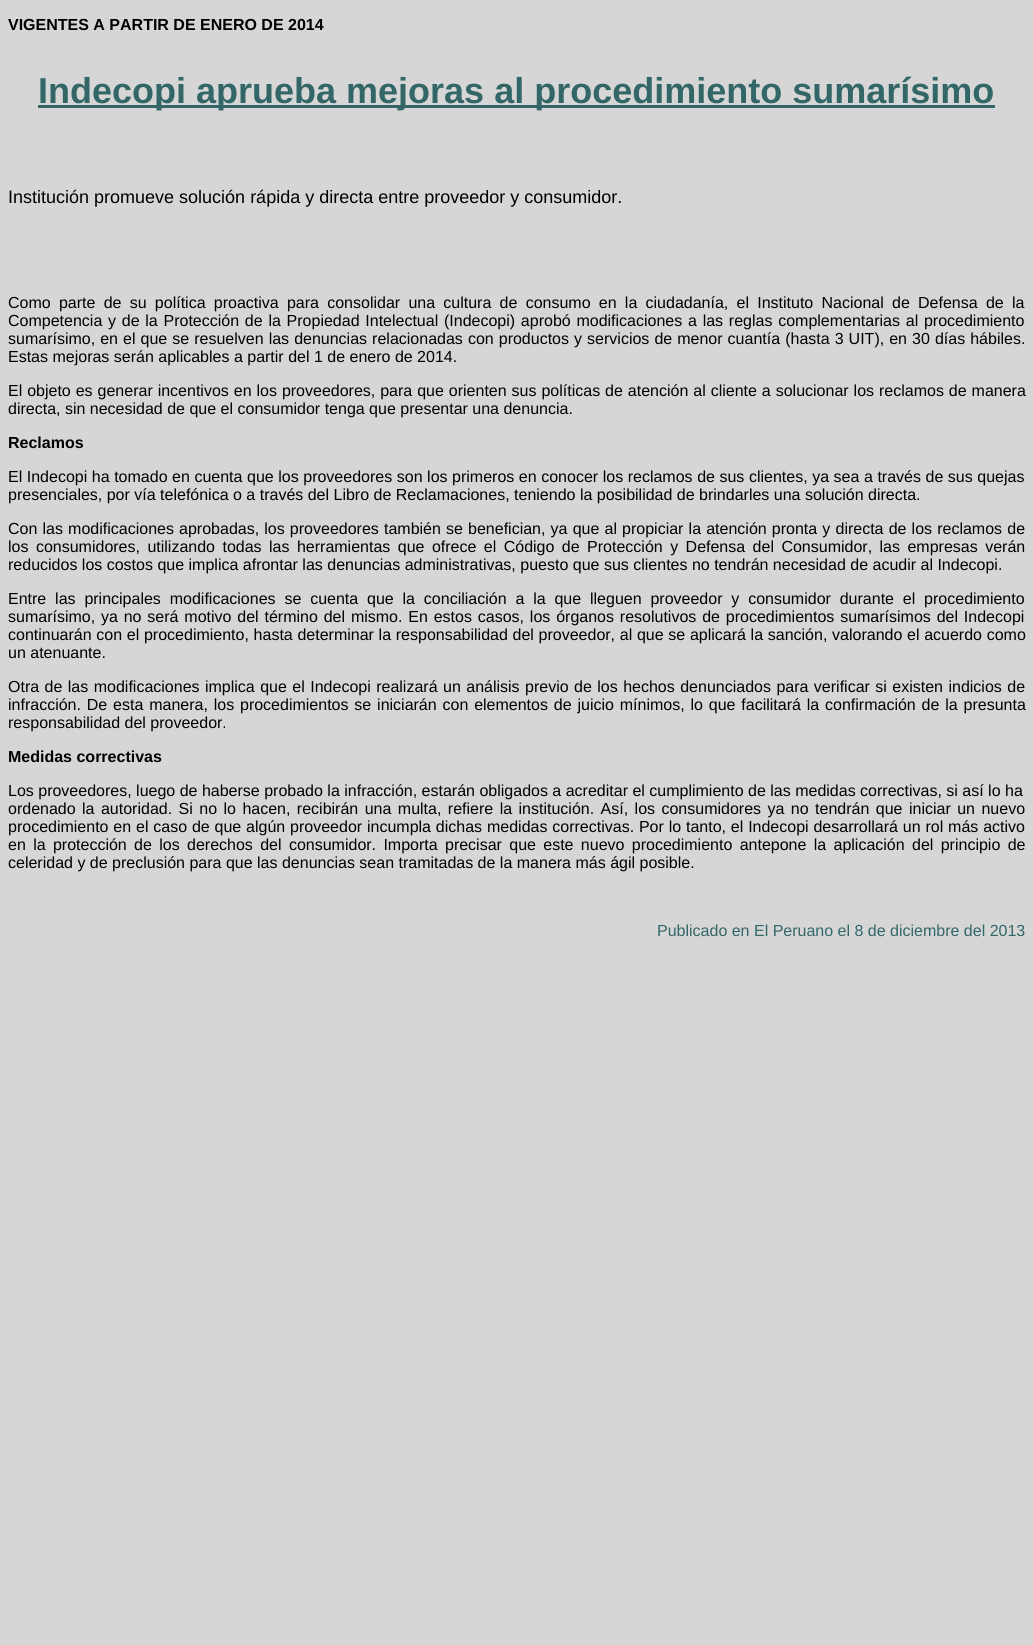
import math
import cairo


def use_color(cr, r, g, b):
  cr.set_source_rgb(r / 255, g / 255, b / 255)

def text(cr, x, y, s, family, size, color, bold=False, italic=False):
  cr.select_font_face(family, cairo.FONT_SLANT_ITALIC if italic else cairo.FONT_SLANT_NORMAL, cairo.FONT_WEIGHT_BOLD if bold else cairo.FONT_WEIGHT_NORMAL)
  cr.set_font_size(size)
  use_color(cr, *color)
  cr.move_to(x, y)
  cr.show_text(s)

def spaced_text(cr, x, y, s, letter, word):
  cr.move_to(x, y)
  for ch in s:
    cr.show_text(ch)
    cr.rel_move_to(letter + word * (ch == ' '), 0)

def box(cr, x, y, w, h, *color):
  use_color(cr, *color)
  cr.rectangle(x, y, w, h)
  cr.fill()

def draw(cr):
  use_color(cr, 214, 214, 214)
  cr.paint()
  box(cr, 38, 105, 957, 3, 51, 102, 102)
  text(cr, 8, 30, "VIGENTES A PARTIR DE ENERO DE 2014", "Liberation Sans", 16, (0, 0, 0), bold=True)
  text(cr, 38, 103, "Indecopi aprueba mejoras al procedimiento sumarísimo", "Liberation Sans", 36, (51, 102, 102), bold=True)
  text(cr, 8, 203, "Institución promueve solución rápida y directa entre proveedor y consumidor.", "Liberation Sans", 18, (0, 0, 0))
  cr.set_font_size(16)
  spaced_text(cr, 8, 308, "Como parte de su política proactiva para consolidar una cultura de consumo en la ciudadanía, el Instituto Nacional de Defensa de la", 0, 3.8)
  spaced_text(cr, 8, 326, "Competencia y de la Protección de la Propiedad Intelectual (Indecopi) aprobó modificaciones a las reglas complementarias al procedimiento", 0, 1.3)
  spaced_text(cr, 8, 344, "sumarísimo, en el que se resuelven las denuncias relacionadas con productos y servicios de menor cuantía (hasta 3 UIT), en 30 días hábiles.", 0, 0.6)
  text(cr, 8, 362, "Estas mejoras serán aplicables a partir del 1 de enero de 2014.", "Liberation Sans", 16, (0, 0, 0))
  spaced_text(cr, 8, 396, "El objeto es generar incentivos en los proveedores, para que orienten sus políticas de atención al cliente a solucionar los reclamos de manera", 0, 0.5)
  text(cr, 8, 414, "directa, sin necesidad de que el consumidor tenga que presentar una denuncia.", "Liberation Sans", 16, (0, 0, 0))
  text(cr, 8, 448, "Reclamos", "Liberation Sans", 16, (0, 0, 0), bold=True)
  cr.select_font_face("Liberation Sans")
  spaced_text(cr, 8, 482, "El Indecopi ha tomado en cuenta que los proveedores son los primeros en conocer los reclamos de sus clientes, ya sea a través de sus quejas", 0, 0.1)
  text(cr, 8, 500, "presenciales, por vía telefónica o a través del Libro de Reclamaciones, teniendo la posibilidad de brindarles una solución directa.", "Liberation Sans", 16, (0, 0, 0))
  spaced_text(cr, 8, 534, "Con las modificaciones aprobadas, los proveedores también se benefician, ya que al propiciar la atención pronta y directa de los reclamos de", 0, 0.7)
  spaced_text(cr, 8, 552, "los consumidores, utilizando todas las herramientas que ofrece el Código de Protección y Defensa del Consumidor, las empresas verán", 0, 3)
  text(cr, 8, 570, "reducidos los costos que implica afrontar las denuncias administrativas, puesto que sus clientes no tendrán necesidad de acudir al Indecopi.", "Liberation Sans", 16, (0, 0, 0))
  spaced_text(cr, 8, 604, "Entre las principales modificaciones se cuenta que la conciliación a la que lleguen proveedor y consumidor durante el procedimiento", 0, 4.4)
  spaced_text(cr, 8, 622, "sumarísimo, ya no será motivo del término del mismo. En estos casos, los órganos resolutivos de procedimientos sumarísimos del Indecopi", 0, 1.4)
  spaced_text(cr, 8, 640, "continuarán con el procedimiento, hasta determinar la responsabilidad del proveedor, al que se aplicará la sanción, valorando el acuerdo como", 0, 0.25)
  text(cr, 8, 658, "un atenuante.", "Liberation Sans", 16, (0, 0, 0))
  spaced_text(cr, 8, 692, "Otra de las modificaciones implica que el Indecopi realizará un análisis", 0, 1)
  spaced_text(cr, 525, 692, "previo de los hechos denunciados para verificar si existen indicios de", 0, 1)
  spaced_text(cr, 8, 710, "infracción. De esta manera, los procedimientos se iniciarán con elementos de juicio mínimos, lo que facilitará la confirmación de la presunta", 0, 1.4)
  text(cr, 8, 728, "responsabilidad del proveedor.", "Liberation Sans", 16, (0, 0, 0))
  text(cr, 8, 762, "Medidas correctivas", "Liberation Sans", 16, (0, 0, 0), bold=True)
  text(cr, 8, 796, "Los proveedores, luego de haberse probado la infracción, estarán obligados a acreditar el cumplimiento de las medidas correctivas, si así lo ha", "Liberation Sans", 16, (0, 0, 0))
  spaced_text(cr, 8, 814, "ordenado la autoridad. Si no lo hacen, recibirán una multa, refiere la institución. Así, los consumidores ya no tendrán que iniciar un nuevo", 0, 2)
  spaced_text(cr, 8, 832, "procedimiento en el caso de que algún proveedor incumpla dichas medidas correctivas. Por lo tanto, el Indecopi desarrollará un rol más activo", 0, 0.4)
  spaced_text(cr, 8, 850, "en la protección de los derechos del consumidor. Importa precisar que este nuevo procedimiento antepone la aplicación del principio de", 0, 2.9)
  text(cr, 8, 868, "celeridad y de preclusión para que las denuncias sean tramitadas de la manera más ágil posible.", "Liberation Sans", 16, (0, 0, 0))
  text(cr, 657, 936, "Publicado en El Peruano el 8 de diciembre del 2013", "Liberation Sans", 16, (51, 102, 102))


surface = cairo.ImageSurface(cairo.FORMAT_RGB24, 1033, 1645)
cr = cairo.Context(surface)
options = cairo.FontOptions()
options.set_hint_metrics(cairo.HINT_METRICS_OFF)
options.set_hint_style(cairo.HINT_STYLE_NONE)
cr.set_font_options(options)
cr.set_miter_limit(4)
draw(cr)
surface.write_to_png("out.png")
